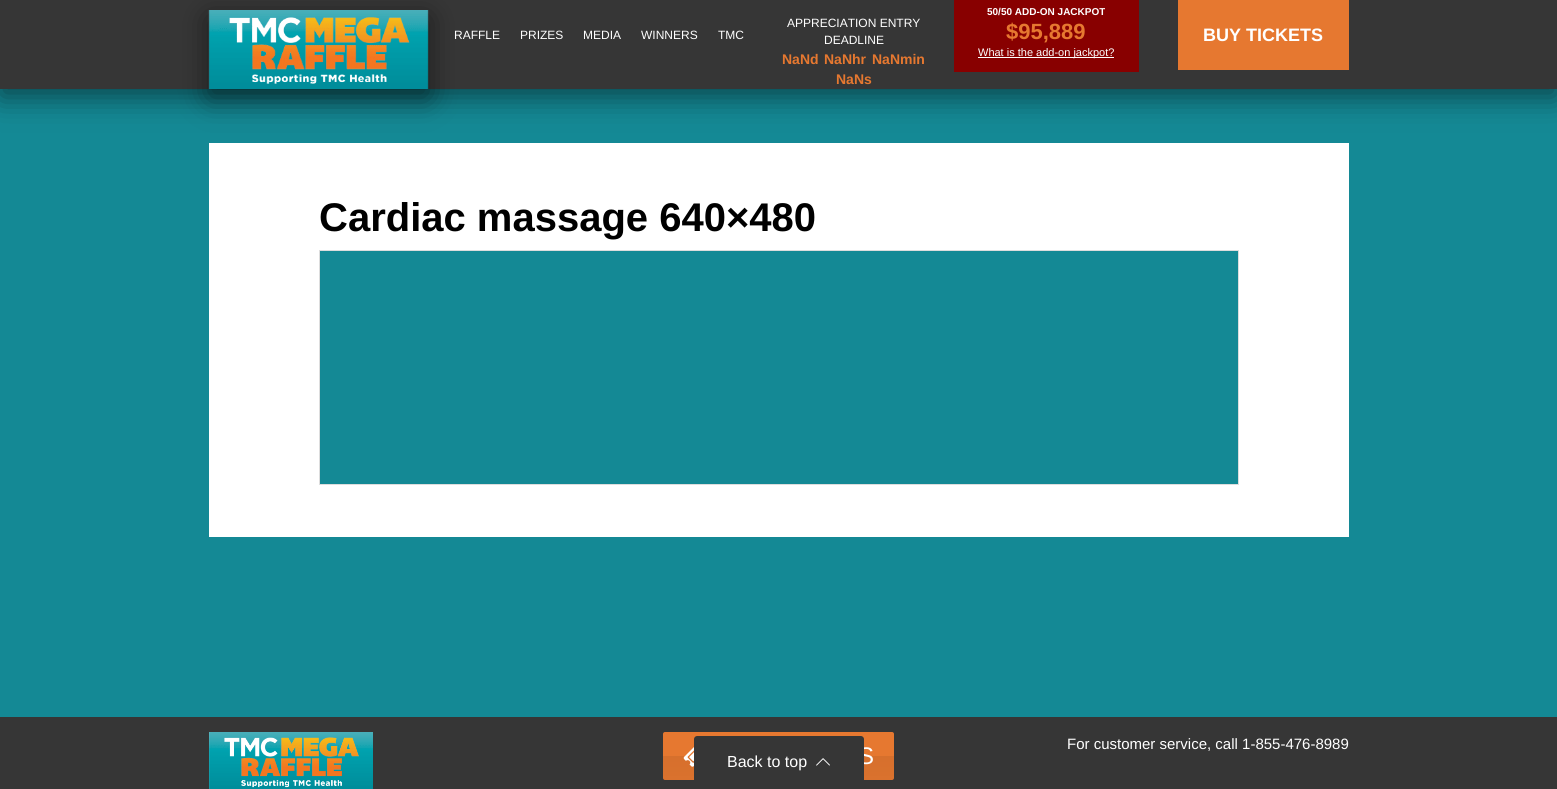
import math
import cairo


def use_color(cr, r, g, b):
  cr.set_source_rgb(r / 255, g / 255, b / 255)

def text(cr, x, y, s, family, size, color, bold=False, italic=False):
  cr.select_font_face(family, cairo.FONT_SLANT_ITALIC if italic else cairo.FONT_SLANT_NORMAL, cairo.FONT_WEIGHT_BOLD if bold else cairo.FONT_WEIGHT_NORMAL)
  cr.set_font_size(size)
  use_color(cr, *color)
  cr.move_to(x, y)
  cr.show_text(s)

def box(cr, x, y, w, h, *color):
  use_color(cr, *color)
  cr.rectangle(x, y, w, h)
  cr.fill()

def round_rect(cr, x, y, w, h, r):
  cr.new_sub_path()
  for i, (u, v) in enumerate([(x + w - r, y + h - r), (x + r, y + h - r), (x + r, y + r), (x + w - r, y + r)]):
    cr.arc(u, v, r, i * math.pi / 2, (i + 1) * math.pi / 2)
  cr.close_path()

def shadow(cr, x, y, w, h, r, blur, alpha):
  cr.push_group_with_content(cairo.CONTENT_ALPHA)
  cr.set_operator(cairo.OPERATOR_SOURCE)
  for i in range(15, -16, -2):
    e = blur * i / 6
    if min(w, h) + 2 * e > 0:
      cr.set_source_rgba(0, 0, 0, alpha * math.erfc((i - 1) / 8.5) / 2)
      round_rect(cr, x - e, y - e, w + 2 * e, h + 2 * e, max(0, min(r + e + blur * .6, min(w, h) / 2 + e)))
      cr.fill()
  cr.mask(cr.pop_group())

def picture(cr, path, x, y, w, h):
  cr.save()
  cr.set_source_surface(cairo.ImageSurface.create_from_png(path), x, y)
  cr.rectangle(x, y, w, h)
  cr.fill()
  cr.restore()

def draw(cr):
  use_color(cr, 20, 137, 149)
  cr.paint()
  use_color(cr, 0, 0, 0)
  shadow(cr, 0, 8, 1557, 89, 0, 14.5, 0.5)
  box(cr, 0, 0, 1557, 89, 54, 54, 54)
  use_color(cr, 0, 0, 0)
  shadow(cr, 209, 18, 219, 79, 0, 14.5, 0.5)
  picture(cr, "img_01.png", 208, 10, 221, 79)
  box(cr, 954, 0, 185, 72, 136, 0, 0)
  box(cr, 978, 57, 136, 1, 255, 255, 255)
  box(cr, 1178, 0, 171, 70, 230, 120, 48)
  box(cr, 209, 143, 1140, 394, 255, 255, 255)
  use_color(cr, 20, 137, 149)
  cr.rectangle(319.5, 250.5, 919, 234)
  cr.fill_preserve()
  use_color(cr, 221, 221, 221)
  cr.set_line_width(1)
  cr.stroke()
  box(cr, 0, 717, 1557, 72, 54, 54, 54)
  picture(cr, "img_03.png", 209, 732, 164, 57)
  use_color(cr, 230, 120, 48)
  round_rect(cr, 663, 732, 231, 48, 2)
  cr.fill()
  gradient = cairo.LinearGradient(779, 756, 779, 780)
  gradient.add_color_stop_rgba(0, 0, 0, 0, 0.07)
  gradient.add_color_stop_rgba(1, 0, 0, 0, 0.05)
  cr.set_source(gradient)
  cr.rectangle(663, 756, 231, 24)
  cr.fill()
  picture(cr, "img_04.png", 683, 747, 11, 20)
  text(cr, 454, 39, "RAFFLE", "Liberation Sans", 12, (255, 255, 255))
  text(cr, 520, 39, "PRIZES", "Liberation Sans", 12, (255, 255, 255))
  text(cr, 583, 39, "MEDIA", "Liberation Sans", 12, (255, 255, 255))
  text(cr, 641, 39, "WINNERS", "Liberation Sans", 12, (255, 255, 255))
  text(cr, 718, 39, "TMC", "Liberation Sans", 12, (255, 255, 255))
  text(cr, 787, 27, "APPRECIATION ENTRY", "Liberation Sans", 12, (255, 255, 255))
  text(cr, 824, 44, "DEADLINE", "Liberation Sans", 12, (255, 255, 255))
  text(cr, 782, 64, "NaNd", "Liberation Sans", 14, (230, 120, 48), bold=True)
  text(cr, 824, 64, "NaNhr", "Liberation Sans", 14, (230, 120, 48), bold=True)
  text(cr, 872, 64, "NaNmin", "Liberation Sans", 14, (230, 120, 48), bold=True)
  text(cr, 836, 84, "NaNs", "Liberation Sans", 14, (230, 120, 48), bold=True)
  text(cr, 987, 15, "50/50 ADD-ON JACKPOT", "Liberation Sans", 10, (255, 255, 255), bold=True)
  text(cr, 1006, 39, "$95,889", "Liberation Sans", 22, (230, 120, 48), bold=True)
  text(cr, 978, 56, "What is the add-on jackpot?", "Liberation Sans", 11, (255, 255, 255))
  text(cr, 1203, 41, "BUY TICKETS", "Liberation Sans", 18, (255, 255, 255), bold=True)
  text(cr, 319, 231, "Cardiac massage 640×480", "Liberation Sans", 40, (0, 0, 0), bold=True)
  text(cr, 1067, 749, "For customer service, call 1-855-476-8989", "Liberation Sans", 15, (255, 255, 255))
  text(cr, 858, 764, "S", "Liberation Sans", 24, (255, 255, 255))
  use_color(cr, 54, 54, 54)
  cr.new_path()
  cr.move_to(697, 736)
  cr.line_to(861, 736)
  cr.curve_to(862.5, 736, 864, 737.5, 864, 739)
  cr.line_to(864, 789)
  cr.line_to(694, 789)
  cr.line_to(694, 739)
  cr.curve_to(694, 737.5, 695.5, 736, 697, 736)
  cr.close_path()
  cr.fill()
  picture(cr, "img_02.png", 816, 758, 14, 8)
  text(cr, 727, 767, "Back to top", "Liberation Sans", 16, (255, 255, 255))


surface = cairo.ImageSurface(cairo.FORMAT_RGB24, 1557, 789)
cr = cairo.Context(surface)
options = cairo.FontOptions()
options.set_hint_metrics(cairo.HINT_METRICS_OFF)
options.set_hint_style(cairo.HINT_STYLE_NONE)
cr.set_font_options(options)
cr.set_miter_limit(4)
draw(cr)
surface.write_to_png("out.png")
